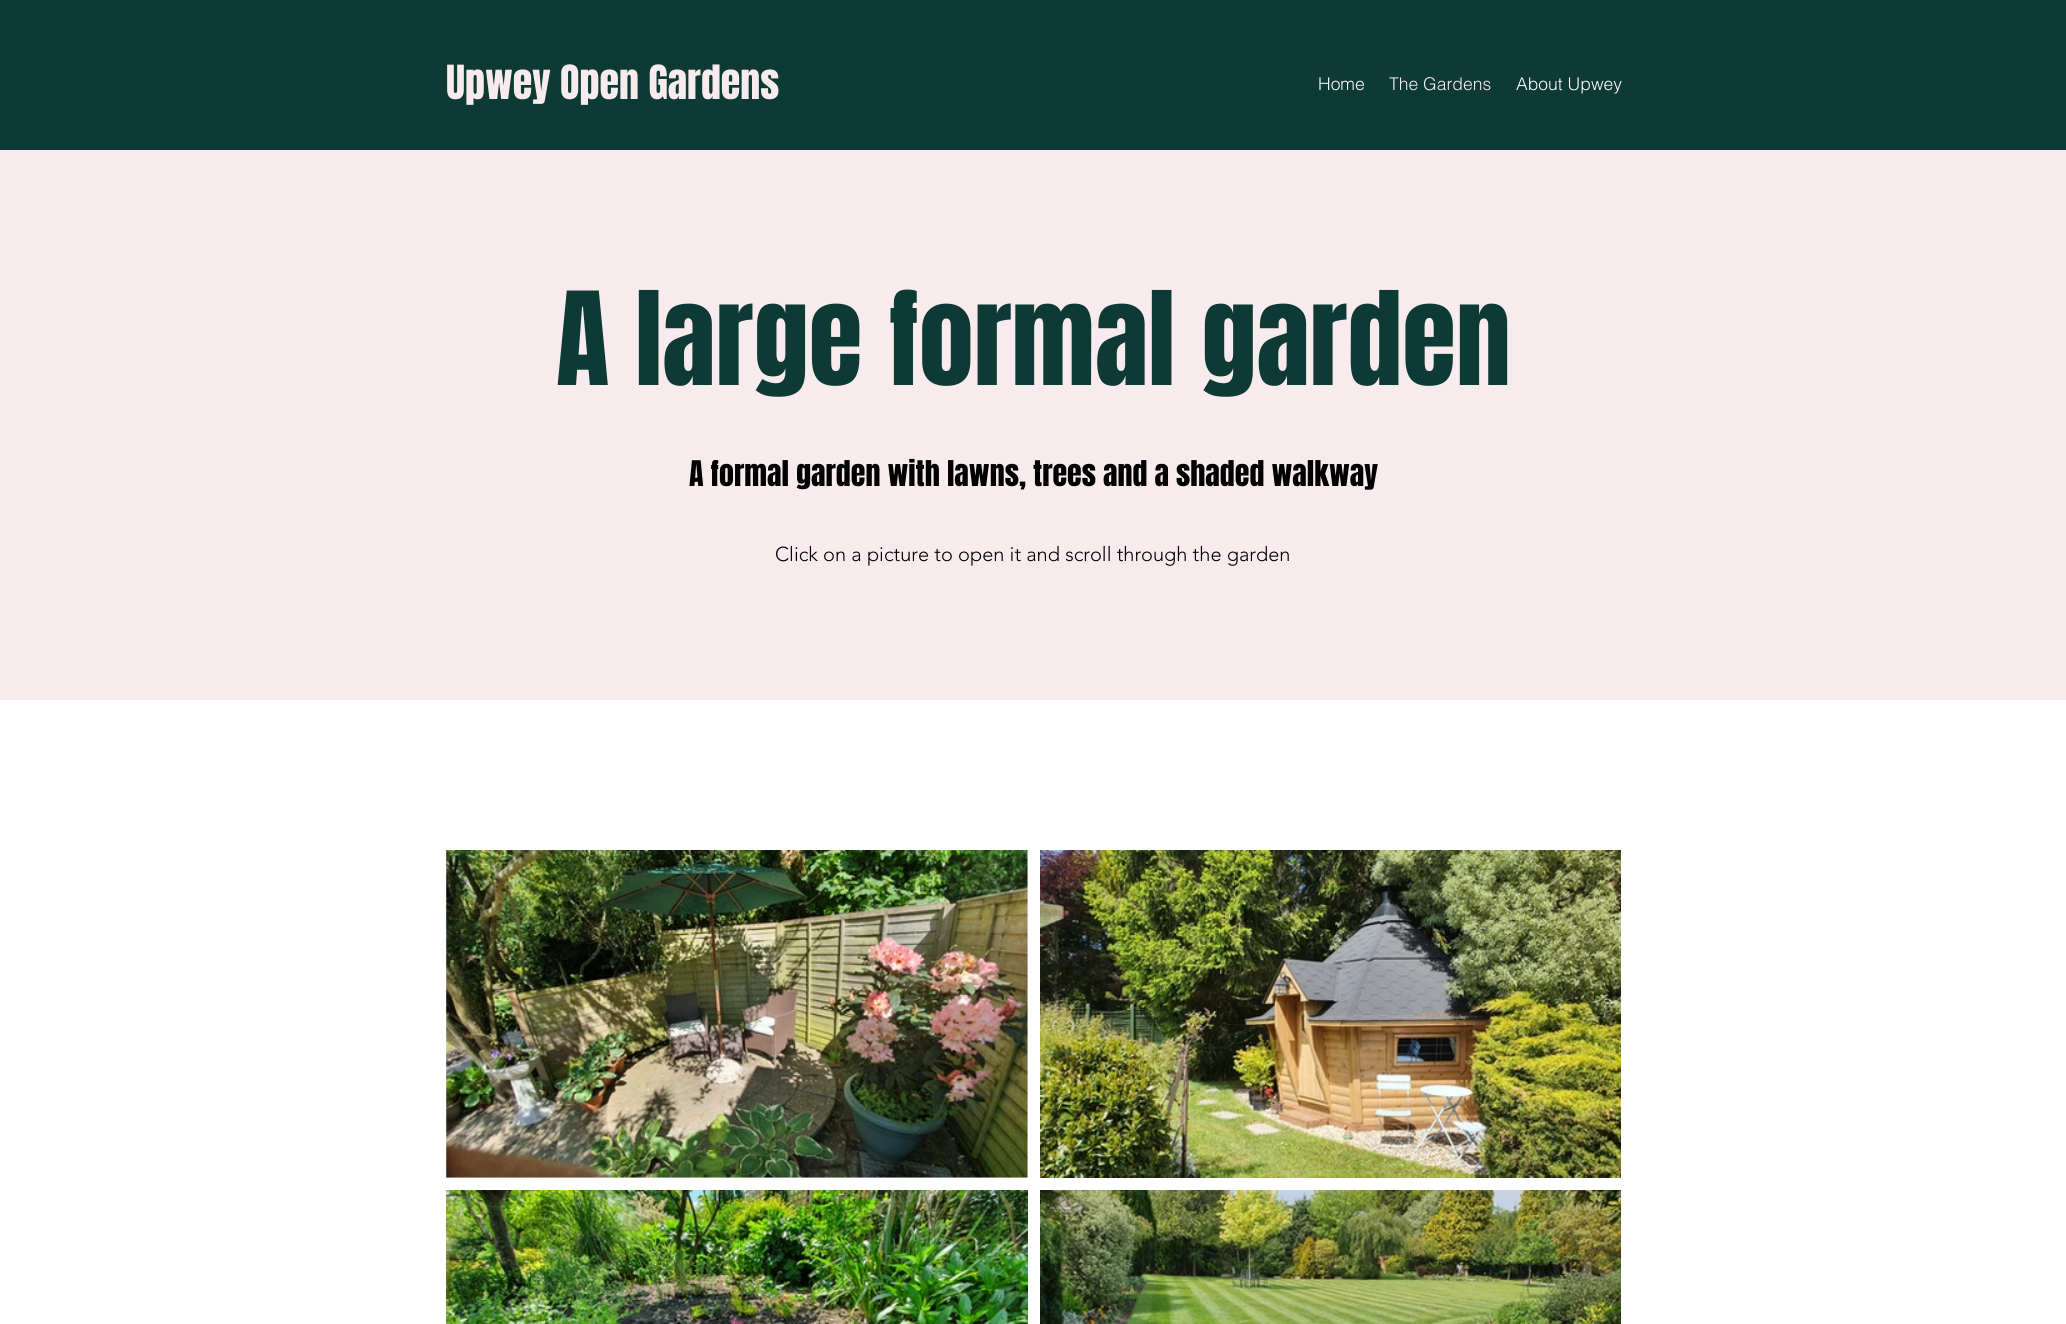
import math
import cairo


def use_color(cr, r, g, b):
  cr.set_source_rgb(r / 255, g / 255, b / 255)

def text(cr, x, y, s, family, size, color, bold=False, italic=False):
  cr.select_font_face(family, cairo.FONT_SLANT_ITALIC if italic else cairo.FONT_SLANT_NORMAL, cairo.FONT_WEIGHT_BOLD if bold else cairo.FONT_WEIGHT_NORMAL)
  cr.set_font_size(size)
  use_color(cr, *color)
  cr.move_to(x, y)
  cr.show_text(s)

def box(cr, x, y, w, h, *color):
  use_color(cr, *color)
  cr.rectangle(x, y, w, h)
  cr.fill()

def picture(cr, path, x, y, w, h):
  cr.save()
  cr.set_source_surface(cairo.ImageSurface.create_from_png(path), x, y)
  cr.rectangle(x, y, w, h)
  cr.fill()
  cr.restore()

def draw(cr):
  use_color(cr, 255, 255, 255)
  cr.paint()
  box(cr, 0, 0, 2066, 150, 13, 58, 53)
  box(cr, 0, 150, 2066, 550, 248, 235, 237)
  box(cr, 446, 850, 582, 328, 230, 230, 230)
  picture(cr, "img_01.png", 446, 850, 582, 328)
  picture(cr, "img_02.png", 1040, 850, 581, 328)
  picture(cr, "img_03.png", 446, 1190, 582, 134)
  picture(cr, "img_04.png", 1040, 1190, 581, 134)
  text(cr, 446, 99, "Upwey Open Gardens", "Anton", 40, (248, 235, 237))
  text(cr, 1318, 90, "Home", "helvetica Light", 17.5, (255, 255, 255))
  text(cr, 1389, 90, "The Gardens", "helvetica Light", 17.5, (248, 235, 237))
  text(cr, 1516, 90, "About Upwey", "helvetica Light", 17.5, (255, 255, 255))
  text(cr, 556, 385, "A large formal garden", "Anton", 110, (13, 58, 53))
  text(cr, 689, 486, "A formal garden with lawns, trees and a shaded walkway", "Anton", 30, (0, 0, 0))
  text(cr, 775, 561, "Click on a picture to open it and scroll through the garden", "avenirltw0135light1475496 Light", 20, (0, 0, 0))


surface = cairo.ImageSurface(cairo.FORMAT_RGB24, 2066, 1324)
cr = cairo.Context(surface)
options = cairo.FontOptions()
options.set_hint_metrics(cairo.HINT_METRICS_OFF)
options.set_hint_style(cairo.HINT_STYLE_NONE)
cr.set_font_options(options)
cr.set_miter_limit(4)
draw(cr)
surface.write_to_png("out.png")
